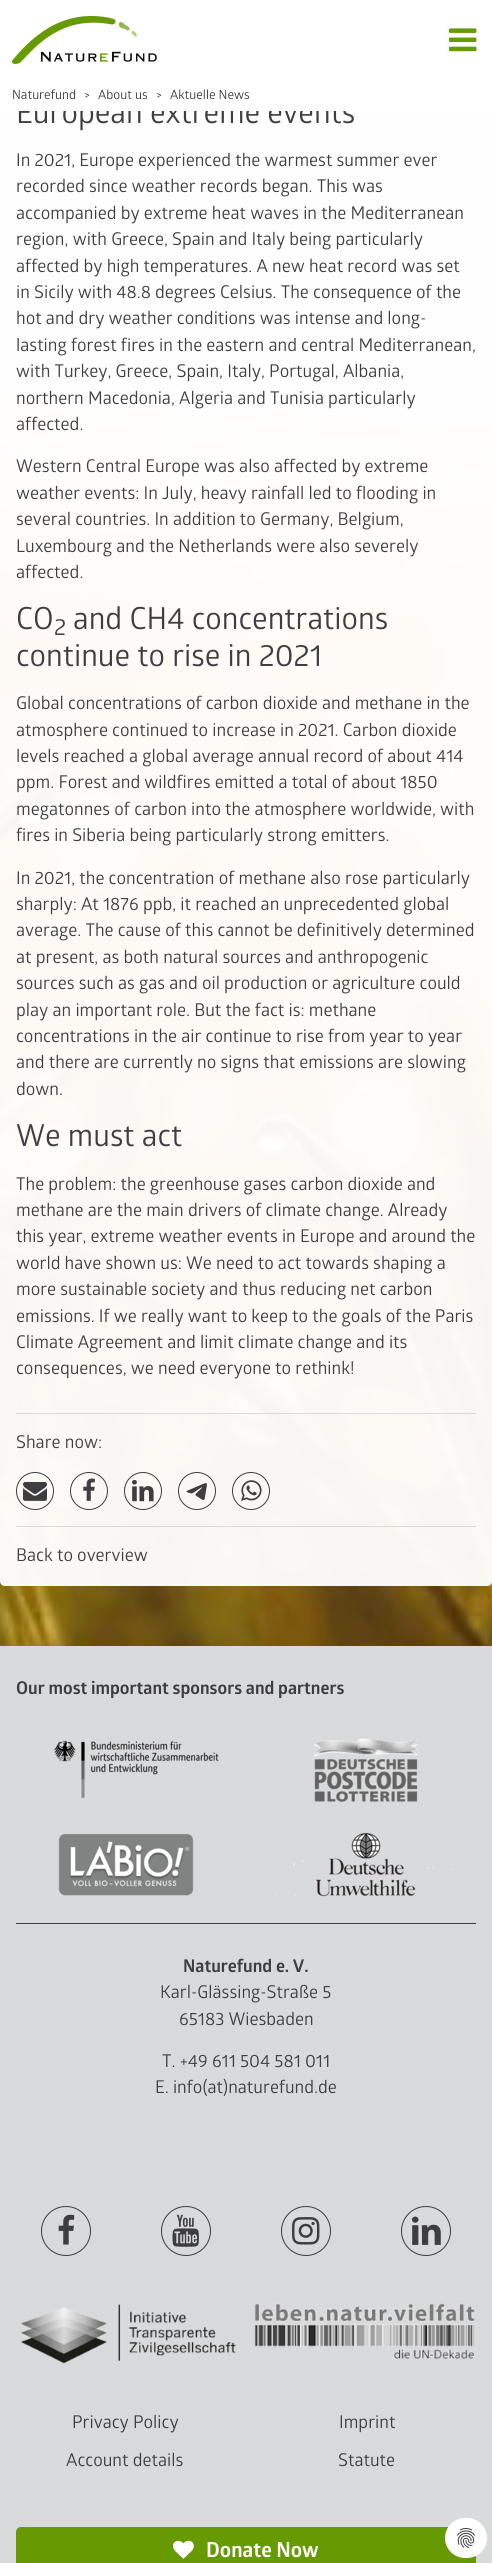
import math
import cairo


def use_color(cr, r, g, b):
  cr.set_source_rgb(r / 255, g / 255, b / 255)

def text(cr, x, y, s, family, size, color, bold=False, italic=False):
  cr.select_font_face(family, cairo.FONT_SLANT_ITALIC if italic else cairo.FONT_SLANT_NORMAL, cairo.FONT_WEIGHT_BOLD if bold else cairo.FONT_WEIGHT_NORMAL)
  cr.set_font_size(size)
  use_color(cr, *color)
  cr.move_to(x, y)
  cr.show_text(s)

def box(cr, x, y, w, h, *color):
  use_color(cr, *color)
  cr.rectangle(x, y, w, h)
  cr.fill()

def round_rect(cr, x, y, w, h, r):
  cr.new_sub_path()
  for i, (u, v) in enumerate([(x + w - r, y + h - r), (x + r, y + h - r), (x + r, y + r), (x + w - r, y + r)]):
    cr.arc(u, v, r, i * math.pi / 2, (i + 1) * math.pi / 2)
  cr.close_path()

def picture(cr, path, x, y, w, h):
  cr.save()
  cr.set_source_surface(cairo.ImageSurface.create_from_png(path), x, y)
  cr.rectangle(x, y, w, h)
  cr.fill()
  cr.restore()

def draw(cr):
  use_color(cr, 255, 255, 255)
  cr.paint()
  picture(cr, "img_08.png", 0, 111, 492, 1535)
  cr.set_source_rgba(1, 1, 1, 0.95)
  cr.new_path()
  cr.move_to(0, -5)
  cr.line_to(492, -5)
  cr.line_to(492, 1581)
  cr.curve_to(492, 1584, 490, 1586, 487, 1586)
  cr.line_to(5, 1586)
  cr.curve_to(2, 1586, 0, 1584, 0, 1581)
  cr.close_path()
  cr.fill()
  picture(cr, "img_01.png", 12, 16, 145, 48)
  picture(cr, "img_02.png", 449, 28, 28, 24)
  box(cr, 16, 1413, 460, 1, 217, 218, 220)
  cr.arc(35, 1491, 18.5, 0, 2 * math.pi)
  use_color(cr, 62, 62, 64)
  cr.set_line_width(1)
  cr.stroke()
  picture(cr, "img_03.png", 23, 1482, 24, 19)
  cr.arc(89, 1491, 18.5, 0, 2 * math.pi)
  cr.stroke()
  picture(cr, "img_04.png", 83, 1478, 12, 23)
  cr.arc(143, 1491, 18.5, 0, 2 * math.pi)
  cr.stroke()
  picture(cr, "img_05.png", 132, 1480, 22, 22)
  cr.arc(197, 1491, 18.5, 0, 2 * math.pi)
  cr.stroke()
  picture(cr, "img_06.png", 186, 1483, 21, 17)
  cr.arc(251, 1491, 18.5, 0, 2 * math.pi)
  cr.stroke()
  picture(cr, "img_07.png", 241, 1480, 21, 21)
  box(cr, 16, 1526, 460, 1, 217, 218, 220)
  box(cr, 0, 1646, 492, 917, 217, 218, 220)
  picture(cr, "img_09.png", 54, 1740, 165, 59)
  picture(cr, "img_10.png", 314, 1738, 104, 64)
  picture(cr, "img_11.png", 58, 1833, 136, 63)
  picture(cr, "img_12.png", 274, 1832, 179, 65)
  box(cr, 16, 1923, 460, 1, 62, 62, 64)
  cr.arc(66, 2231, 24.5, 0, 2 * math.pi)
  cr.stroke()
  picture(cr, "img_13.png", 58, 2214, 17, 31)
  cr.arc(186, 2231, 24.5, 0, 2 * math.pi)
  cr.stroke()
  picture(cr, "img_14.png", 172, 2214, 27, 33)
  cr.arc(306, 2231, 24.5, 0, 2 * math.pi)
  cr.stroke()
  picture(cr, "img_15.png", 292, 2217, 28, 28)
  cr.arc(426, 2231, 24.5, 0, 2 * math.pi)
  cr.stroke()
  picture(cr, "img_16.png", 412, 2216, 29, 29)
  picture(cr, "img_17.png", 21, 2304, 215, 60)
  picture(cr, "img_18.png", 254, 2303, 221, 56)
  use_color(cr, 102, 154, 1)
  round_rect(cr, 17, 2528, 458, 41, 4)
  cr.fill_preserve()
  cr.set_line_width(2)
  cr.stroke()
  picture(cr, "img_19.png", 173, 2540, 21, 19)
  use_color(cr, 255, 255, 255)
  round_rect(cr, 445, 2518, 42, 40, 20)
  cr.fill()
  picture(cr, "img_20.png", 457, 2528, 18, 20)
  text(cr, 12, 99, "Naturefund", "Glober", 12.75, (62, 62, 64))
  text(cr, 84, 99, ">", "Glober", 12.75, (62, 62, 64))
  text(cr, 98, 99, "About us", "Glober", 12.75, (62, 62, 64))
  text(cr, 156, 99, ">", "Glober", 12.75, (62, 62, 64))
  text(cr, 170, 99, "Aktuelle News", "Glober", 12.75, (62, 62, 64))
  text(cr, 16, 123, "European extreme events", "Glober", 30.4, (62, 62, 64))
  box(cr, 18, 101, 335, 10, 255, 255, 255)
  text(cr, 16, 166, "In 2021, Europe experienced the warmest summer ever", "Glober", 17.6, (62, 62, 64))
  text(cr, 16, 192, "recorded since weather records began. This was", "Glober", 17.6, (62, 62, 64))
  text(cr, 16, 219, "accompanied by extreme heat waves in the Mediterranean", "Glober", 17.6, (62, 62, 64))
  text(cr, 16, 245, "region, with Greece, Spain and Italy being particularly", "Glober", 17.6, (62, 62, 64))
  text(cr, 16, 272, "affected by high temperatures. A new heat record was set", "Glober", 17.6, (62, 62, 64))
  text(cr, 16, 298, "in Sicily with 48.8 degrees Celsius. The consequence of the", "Glober", 17.6, (62, 62, 64))
  text(cr, 16, 324, "hot and dry weather conditions was intense and long-", "Glober", 17.6, (62, 62, 64))
  text(cr, 16, 351, "lasting forest fires in the eastern and central Mediterranean,", "Glober", 17.6, (62, 62, 64))
  text(cr, 16, 377, "with Turkey, Greece, Spain, Italy, Portugal, Albania,", "Glober", 17.6, (62, 62, 64))
  text(cr, 16, 404, "northern Macedonia, Algeria and Tunisia particularly", "Glober", 17.6, (62, 62, 64))
  text(cr, 16, 430, "affected.", "Glober", 17.6, (62, 62, 64))
  text(cr, 16, 472, "Western Central Europe was also affected by extreme", "Glober", 17.6, (62, 62, 64))
  text(cr, 16, 499, "weather events: In July, heavy rainfall led to flooding in", "Glober", 17.6, (62, 62, 64))
  text(cr, 16, 525, "several countries. In addition to Germany, Belgium,", "Glober", 17.6, (62, 62, 64))
  text(cr, 16, 552, "Luxembourg and the Netherlands were also severely", "Glober", 17.6, (62, 62, 64))
  text(cr, 16, 578, "affected.", "Glober", 17.6, (62, 62, 64))
  text(cr, 16, 629, "CO", "Glober", 30.4, (62, 62, 64))
  text(cr, 54, 635, "2", "Glober", 23, (62, 62, 64))
  text(cr, 73, 629, "and CH4 concentrations", "Glober", 30.4, (62, 62, 64))
  text(cr, 16, 666, "continue to rise in 2021", "Glober", 30.4, (62, 62, 64))
  text(cr, 16, 709, "Global concentrations of carbon dioxide and methane in the", "Glober", 17.6, (62, 62, 64))
  text(cr, 16, 736, "atmosphere continued to increase in 2021. Carbon dioxide", "Glober", 17.6, (62, 62, 64))
  text(cr, 16, 762, "levels reached a global average annual record of about 414", "Glober", 17.6, (62, 62, 64))
  text(cr, 16, 788, "ppm. Forest and wildfires emitted a total of about 1850", "Glober", 17.6, (62, 62, 64))
  text(cr, 16, 815, "megatonnes of carbon into the atmosphere worldwide, with", "Glober", 17.6, (62, 62, 64))
  text(cr, 16, 841, "fires in Siberia being particularly strong emitters.", "Glober", 17.6, (62, 62, 64))
  text(cr, 16, 884, "In 2021, the concentration of methane also rose particularly", "Glober", 17.6, (62, 62, 64))
  text(cr, 16, 910, "sharply: At 1876 ppb, it reached an unprecedented global", "Glober", 17.6, (62, 62, 64))
  text(cr, 16, 936, "average. The cause of this cannot be definitively determined", "Glober", 17.6, (62, 62, 64))
  text(cr, 16, 963, "at present, as both natural sources and anthropogenic", "Glober", 17.6, (62, 62, 64))
  text(cr, 16, 989, "sources such as gas and oil production or agriculture could", "Glober", 17.6, (62, 62, 64))
  text(cr, 16, 1016, "play an important role. But the fact is: methane", "Glober", 17.6, (62, 62, 64))
  text(cr, 16, 1042, "concentrations in the air continue to rise from year to year", "Glober", 17.6, (62, 62, 64))
  text(cr, 16, 1068, "and there are currently no signs that emissions are slowing", "Glober", 17.6, (62, 62, 64))
  text(cr, 16, 1095, "down.", "Glober", 17.6, (62, 62, 64))
  text(cr, 16, 1146, "We must act", "Glober", 30.4, (62, 62, 64))
  text(cr, 16, 1190, "The problem: the greenhouse gases carbon dioxide and", "Glober", 17.6, (62, 62, 64))
  text(cr, 16, 1216, "methane are the main drivers of climate change. Already", "Glober", 17.6, (62, 62, 64))
  text(cr, 16, 1242, "this year, extreme weather events in Europe and around the", "Glober", 17.6, (62, 62, 64))
  text(cr, 16, 1269, "world have shown us: We need to act towards shaping a", "Glober", 17.6, (62, 62, 64))
  text(cr, 16, 1295, "more sustainable society and thus reducing net carbon", "Glober", 17.6, (62, 62, 64))
  text(cr, 16, 1322, "emissions. If we really want to keep to the goals of the Paris", "Glober", 17.6, (62, 62, 64))
  text(cr, 16, 1348, "Climate Agreement and limit climate change and its", "Glober", 17.6, (62, 62, 64))
  text(cr, 16, 1374, "consequences, we need everyone to rethink!", "Glober", 17.6, (62, 62, 64))
  text(cr, 16, 1448, "Share now:", "Glober", 17.6, (62, 62, 64))
  text(cr, 16, 1561, "Back to overview", "Glober", 17.6, (62, 62, 64))
  text(cr, 16, 1694, "Our most important sponsors and partners", "Glober", 17.6, (62, 62, 64), bold=True)
  text(cr, 183, 1972, "Naturefund e. V.", "Glober", 17.6, (62, 62, 64), bold=True)
  text(cr, 160, 1998, "Karl-Glässing-Straße 5", "Glober", 17.6, (62, 62, 64))
  text(cr, 179, 2025, "65183 Wiesbaden", "Glober", 17.6, (62, 62, 64))
  text(cr, 162, 2067, "T. +49 611 504 581 011", "Glober", 17.6, (62, 62, 64))
  text(cr, 155, 2093, "E. info(at)naturefund.de", "Glober", 17.6, (62, 62, 64))
  text(cr, 72, 2428, "Privacy Policy", "Glober", 17.6, (62, 62, 64))
  text(cr, 339, 2428, "Imprint", "Glober", 17.6, (62, 62, 64))
  text(cr, 66, 2466, "Account details", "Glober", 17.6, (62, 62, 64))
  text(cr, 338, 2466, "Statute", "Glober", 17.6, (62, 62, 64))
  text(cr, 206, 2557, "Donate Now", "Glober", 20.75, (255, 255, 255), bold=True)


surface = cairo.ImageSurface(cairo.FORMAT_RGB24, 492, 2563)
cr = cairo.Context(surface)
options = cairo.FontOptions()
options.set_hint_metrics(cairo.HINT_METRICS_OFF)
options.set_hint_style(cairo.HINT_STYLE_NONE)
cr.set_font_options(options)
cr.set_miter_limit(4)
draw(cr)
surface.write_to_png("out.png")
